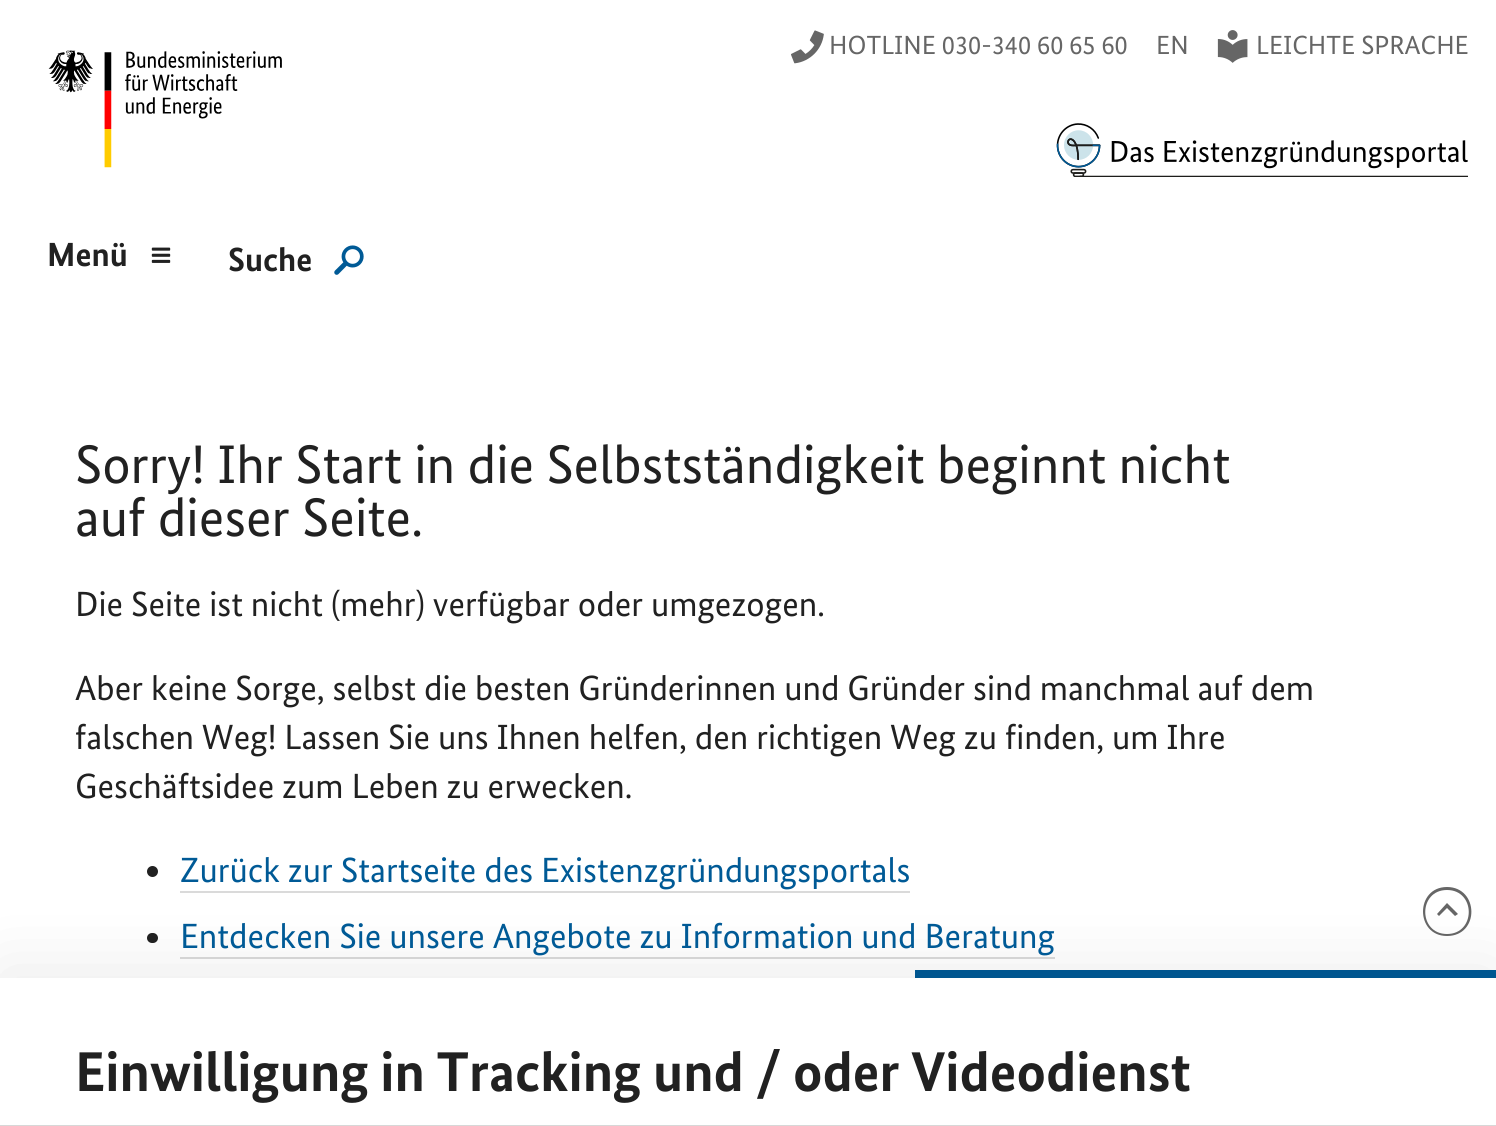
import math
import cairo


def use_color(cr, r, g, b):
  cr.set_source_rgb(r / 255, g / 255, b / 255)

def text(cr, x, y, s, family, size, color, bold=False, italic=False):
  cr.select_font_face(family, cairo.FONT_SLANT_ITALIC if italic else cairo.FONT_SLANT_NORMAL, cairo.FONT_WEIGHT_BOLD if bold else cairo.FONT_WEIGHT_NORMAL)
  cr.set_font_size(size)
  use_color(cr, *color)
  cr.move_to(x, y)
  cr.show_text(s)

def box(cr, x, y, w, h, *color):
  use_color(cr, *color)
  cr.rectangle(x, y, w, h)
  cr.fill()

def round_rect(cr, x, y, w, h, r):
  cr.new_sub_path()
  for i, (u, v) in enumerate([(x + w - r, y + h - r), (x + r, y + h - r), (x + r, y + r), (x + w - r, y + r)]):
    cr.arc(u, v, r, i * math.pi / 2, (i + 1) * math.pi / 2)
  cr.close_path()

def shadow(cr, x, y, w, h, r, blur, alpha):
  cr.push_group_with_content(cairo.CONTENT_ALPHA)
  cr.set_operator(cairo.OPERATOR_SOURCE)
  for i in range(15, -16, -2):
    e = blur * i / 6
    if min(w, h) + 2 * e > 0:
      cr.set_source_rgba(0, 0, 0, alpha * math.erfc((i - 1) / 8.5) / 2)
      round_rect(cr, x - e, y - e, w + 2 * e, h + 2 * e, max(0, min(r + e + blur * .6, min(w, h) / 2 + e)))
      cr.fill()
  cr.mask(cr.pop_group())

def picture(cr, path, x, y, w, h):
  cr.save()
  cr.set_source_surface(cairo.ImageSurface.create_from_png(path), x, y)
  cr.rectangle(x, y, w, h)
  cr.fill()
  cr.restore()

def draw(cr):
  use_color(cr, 255, 255, 255)
  cr.paint()
  picture(cr, "img_01.png", 791, 30, 33, 34)
  picture(cr, "img_02.png", 1217, 30, 31, 33)
  picture(cr, "img_03.png", 48, 50, 234, 118)
  picture(cr, "img_04.png", 1056, 123, 412, 54)
  picture(cr, "img_05.png", 151, 247, 20, 16)
  picture(cr, "img_06.png", 334, 245, 30, 30)
  use_color(cr, 33, 33, 33)
  cr.arc(152.5, 871.5, 5.5, 0, 2 * math.pi)
  cr.fill()
  box(cr, 180, 891, 730, 2, 218, 218, 218)
  use_color(cr, 33, 33, 33)
  round_rect(cr, 147, 933, 11, 10, 5)
  cr.fill()
  box(cr, 180, 957, 875, 2, 218, 218, 218)
  box(cr, 915, 970, 581, 8, 0, 90, 150)
  use_color(cr, 102, 102, 102)
  cr.new_path()
  cr.move_to(1439, 916)
  cr.line_to(1437, 914)
  cr.line_to(1447, 903)
  cr.line_to(1458, 914)
  cr.line_to(1455, 916)
  cr.line_to(1447, 908)
  cr.close_path()
  cr.move_to(1447, 890)
  cr.curve_to(1476, 890, 1476, 934, 1447, 934)
  cr.curve_to(1418, 934, 1418, 890, 1447, 890)
  cr.close_path()
  cr.move_to(1447, 887)
  cr.curve_to(1415, 887, 1415, 936, 1447, 936)
  cr.curve_to(1480, 936, 1479, 887, 1447, 887)
  cr.close_path()
  cr.fill()
  use_color(cr, 0, 0, 0)
  shadow(cr, 0, 970, 1496, 148, 0, 37, 0.08)
  box(cr, 0, 978, 1496, 147, 255, 255, 255)
  box(cr, 0, 1125, 1496, 1, 215, 215, 215)
  text(cr, 829, 54, "HOTLINE 030-340 60 65 60", "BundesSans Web", 26.25, (102, 102, 102))
  text(cr, 1156, 54, "EN", "BundesSans Web", 26.25, (102, 102, 102))
  text(cr, 1256, 54, "LEICHTE SPRACHE", "BundesSans Web", 26.25, (102, 102, 102))
  text(cr, 47, 266, "Menü", "BundesSans Web", 33.5, (33, 33, 33), bold=True)
  text(cr, 228, 271, "Suche", "BundesSans Web", 33.5, (33, 33, 33), bold=True)
  text(cr, 75, 483, "Sorry! Ihr Start in die Selbstständigkeit beginnt nicht", "BundesSans Web", 54.25, (33, 33, 33))
  text(cr, 75, 536, "auf dieser Seite.", "BundesSans Web", 54.25, (33, 33, 33))
  text(cr, 75, 616, "Die Seite ist nicht (mehr) verfügbar oder umgezogen.", "BundesSans Web", 35, (33, 33, 33))
  text(cr, 75, 700, "Aber keine Sorge, selbst die besten Gründerinnen und Gründer sind manchmal auf dem", "BundesSans Web", 35, (33, 33, 33))
  text(cr, 75, 749, "falschen Weg! Lassen Sie uns Ihnen helfen, den richtigen Weg zu finden, um Ihre", "BundesSans Web", 35, (33, 33, 33))
  text(cr, 75, 798, "Geschäftsidee zum Leben zu erwecken.", "BundesSans Web", 35, (33, 33, 33))
  text(cr, 180, 882, "Zurück zur Startseite des Existenzgründungsportals", "BundesSans Web", 35, (0, 90, 150))
  text(cr, 180, 948, "Entdecken Sie unsere Angebote zu Information und Beratung", "BundesSans Web", 35, (0, 90, 150))
  text(cr, 75, 1091, "Einwilligung in Tracking und / oder Videodienst", "BundesSans Web", 56, (33, 33, 33), bold=True)


surface = cairo.ImageSurface(cairo.FORMAT_RGB24, 1496, 1126)
cr = cairo.Context(surface)
options = cairo.FontOptions()
options.set_hint_metrics(cairo.HINT_METRICS_OFF)
options.set_hint_style(cairo.HINT_STYLE_NONE)
cr.set_font_options(options)
cr.set_miter_limit(4)
draw(cr)
surface.write_to_png("out.png")
